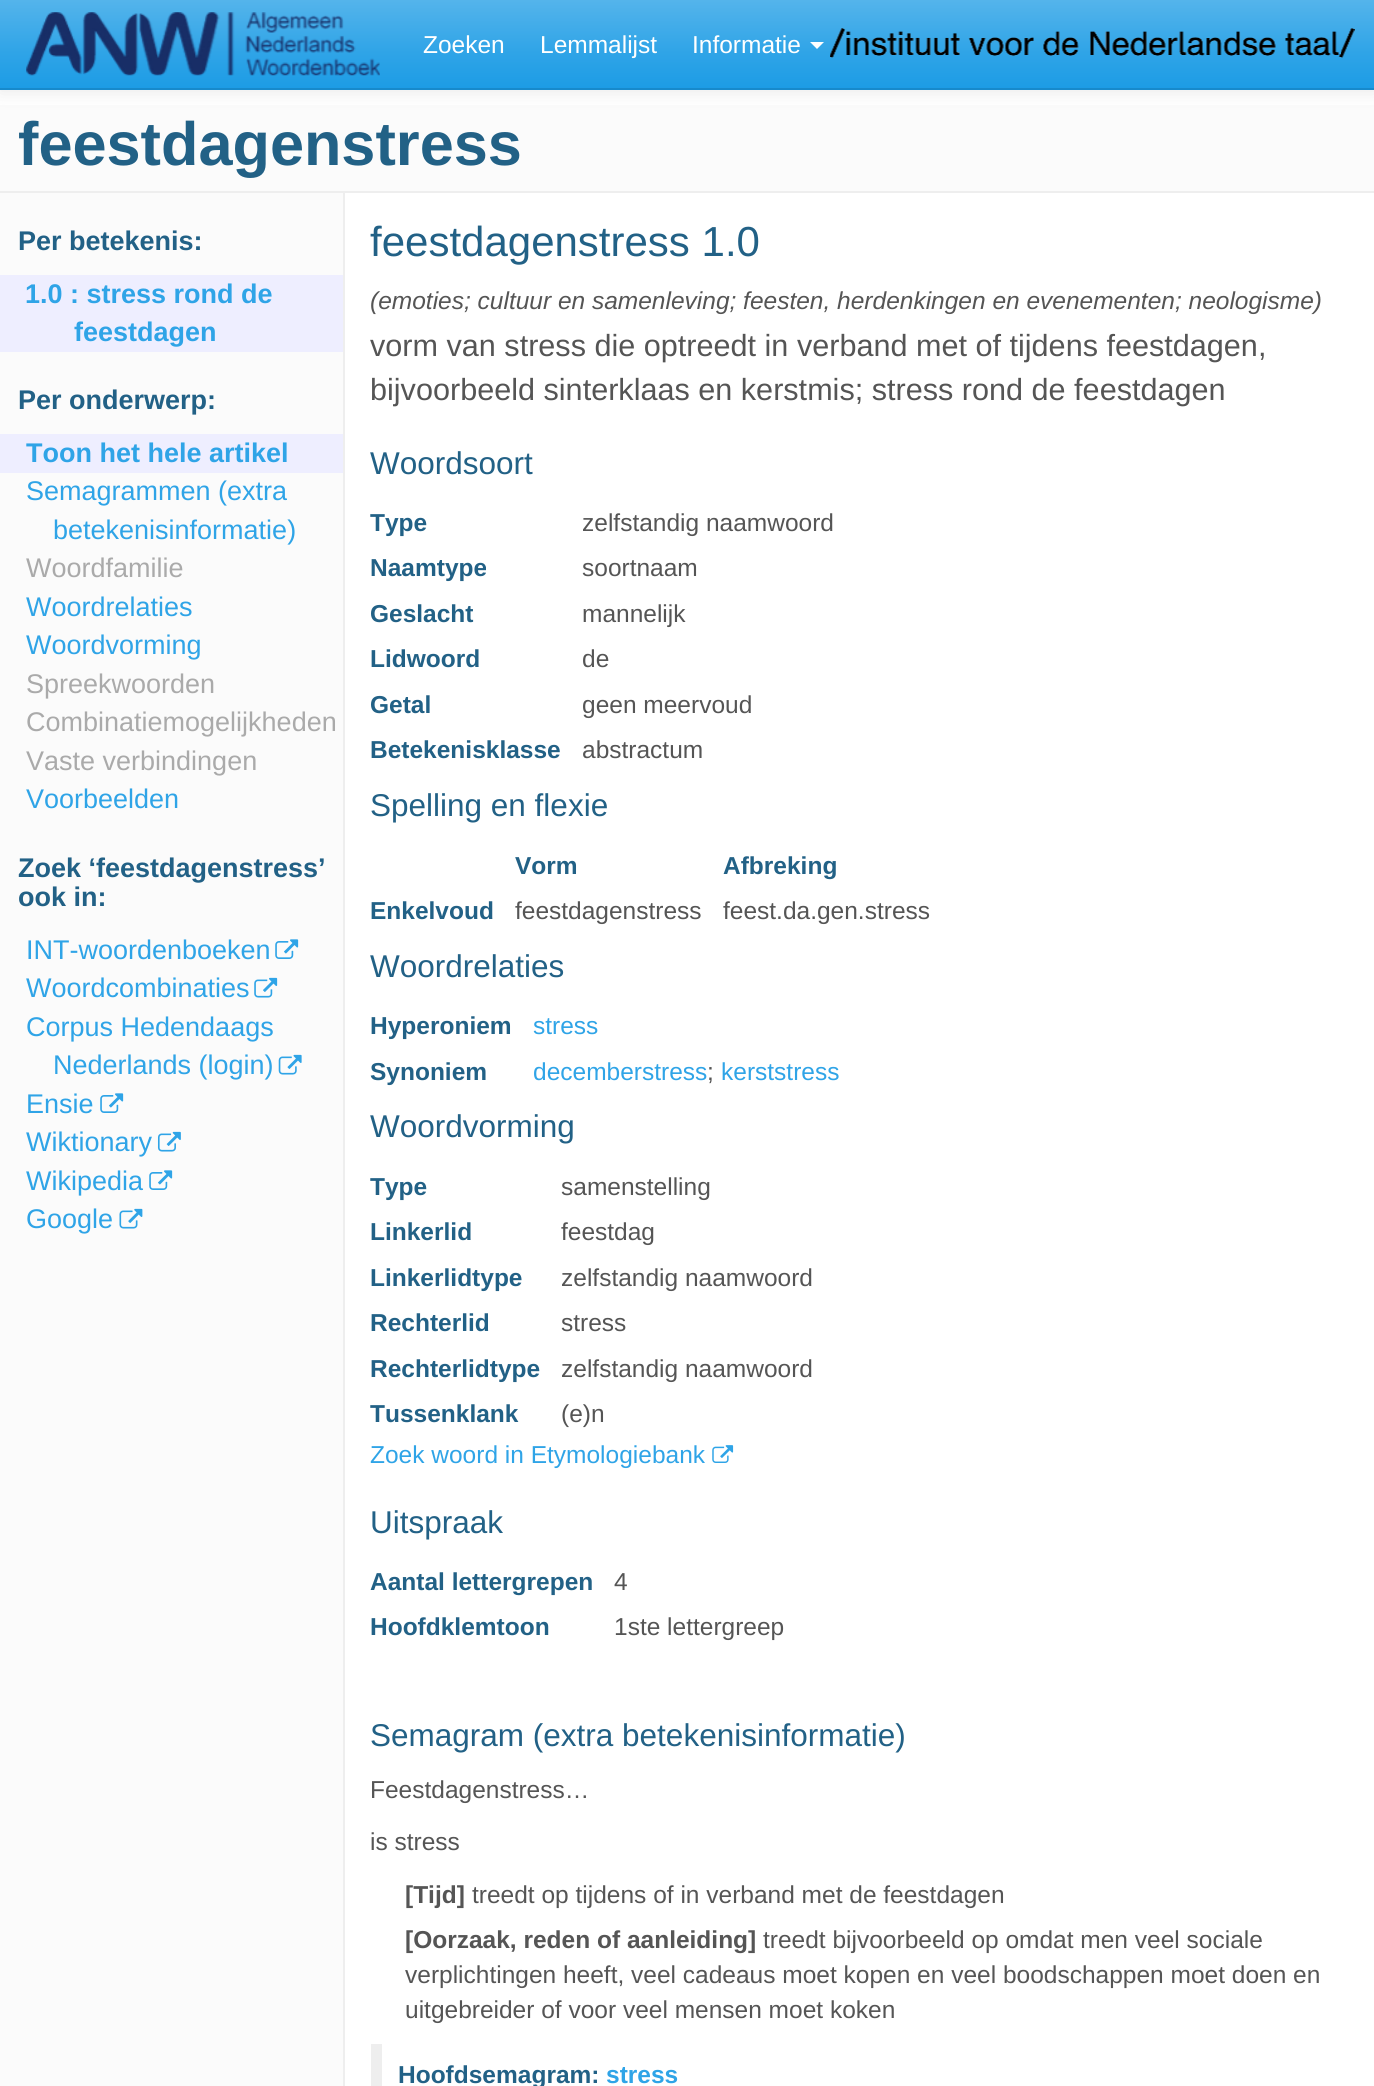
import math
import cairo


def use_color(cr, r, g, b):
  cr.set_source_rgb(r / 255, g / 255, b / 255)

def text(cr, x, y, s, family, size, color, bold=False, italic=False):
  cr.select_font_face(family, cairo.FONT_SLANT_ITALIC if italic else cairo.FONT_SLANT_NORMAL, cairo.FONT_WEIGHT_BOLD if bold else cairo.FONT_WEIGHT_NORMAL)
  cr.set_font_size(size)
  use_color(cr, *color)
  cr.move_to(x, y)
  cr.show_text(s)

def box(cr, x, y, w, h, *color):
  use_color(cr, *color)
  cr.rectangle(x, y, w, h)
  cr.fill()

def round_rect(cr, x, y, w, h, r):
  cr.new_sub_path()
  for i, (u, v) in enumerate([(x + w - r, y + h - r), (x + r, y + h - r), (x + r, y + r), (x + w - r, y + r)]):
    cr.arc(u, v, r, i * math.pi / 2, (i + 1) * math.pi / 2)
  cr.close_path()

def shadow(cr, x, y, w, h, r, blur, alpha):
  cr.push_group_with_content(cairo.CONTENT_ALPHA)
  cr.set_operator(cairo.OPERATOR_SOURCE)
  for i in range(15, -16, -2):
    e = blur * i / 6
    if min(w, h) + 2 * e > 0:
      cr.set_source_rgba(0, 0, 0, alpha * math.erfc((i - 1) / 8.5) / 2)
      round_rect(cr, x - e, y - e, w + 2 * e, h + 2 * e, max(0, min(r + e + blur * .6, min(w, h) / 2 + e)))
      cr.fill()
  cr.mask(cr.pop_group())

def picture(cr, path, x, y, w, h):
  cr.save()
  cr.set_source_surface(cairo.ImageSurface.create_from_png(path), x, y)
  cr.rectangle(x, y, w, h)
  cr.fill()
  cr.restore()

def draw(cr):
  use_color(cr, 255, 255, 255)
  cr.paint()
  box(cr, 0, 105, 1374, 86, 251, 251, 251)
  use_color(cr, 0, 0, 0)
  shadow(cr, 0, 2, 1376, 89, 0, 9, 0.1)
  gradient = cairo.LinearGradient(688, 0, 688, 88)
  gradient.add_color_stop_rgba(0, 0.329, 0.706, 0.922, 1)
  gradient.add_color_stop_rgba(0.6, 0.184, 0.643, 0.906, 1)
  gradient.add_color_stop_rgba(1, 0.114, 0.612, 0.898, 1)
  cr.set_source(gradient)
  cr.rectangle(0, 0, 1374, 88)
  cr.fill()
  box(cr, 0, 88, 1374, 2, 23, 138, 204)
  picture(cr, "img_01.png", 26, 12, 354, 64)
  use_color(cr, 255, 255, 255)
  cr.new_path()
  cr.move_to(810, 42)
  cr.line_to(824, 42)
  cr.line_to(817, 49)
  cr.close_path()
  cr.fill()
  picture(cr, "img_02.png", 830, 28, 525, 30)
  box(cr, 0, 191, 1374, 2, 238, 238, 238)
  box(cr, 0, 193, 343, 1893, 251, 251, 251)
  box(cr, 343, 193, 2, 1893, 238, 238, 238)
  box(cr, 0, 275, 343, 77, 238, 238, 255)
  box(cr, 0, 434, 343, 39, 238, 238, 255)
  picture(cr, "img_03.png", 275, 939, 24, 20)
  picture(cr, "img_04.png", 254, 977, 24, 21)
  picture(cr, "img_05.png", 278, 1054, 24, 21)
  picture(cr, "img_03.png", 100, 1093, 24, 20)
  picture(cr, "img_06.png", 157, 1131, 24, 21)
  picture(cr, "img_03.png", 149, 1170, 24, 20)
  picture(cr, "img_07.png", 119, 1208, 24, 21)
  picture(cr, "img_08.png", 712, 1445, 22, 18)
  box(cr, 371, 2044, 11, 42, 238, 238, 238)
  text(cr, 423, 53, "Zoeken", "Liberation Sans", 24.5, (255, 255, 255))
  text(cr, 540, 53, "Lemmalijst", "Liberation Sans", 24.5, (255, 255, 255))
  text(cr, 692, 53, "Informatie", "Liberation Sans", 24.5, (255, 255, 255))
  text(cr, 18, 165, "feestdagenstress", "Liberation Sans", 61.25, (34, 97, 134), bold=True)
  text(cr, 18, 250, "Per betekenis:", "Liberation Sans", 27, (34, 97, 134), bold=True)
  text(cr, 25, 303, "1.0 : stress rond de", "Liberation Sans", 27, (47, 164, 231), bold=True)
  text(cr, 74, 341, "feestdagen", "Liberation Sans", 27, (47, 164, 231), bold=True)
  text(cr, 18, 409, "Per onderwerp:", "Liberation Sans", 27, (34, 97, 134), bold=True)
  text(cr, 26, 462, "Toon het hele artikel", "Liberation Sans", 27, (47, 164, 231), bold=True)
  text(cr, 26, 500, "Semagrammen (extra", "Liberation Sans", 27, (47, 164, 231))
  text(cr, 53, 539, "betekenisinformatie)", "Liberation Sans", 27, (47, 164, 231))
  text(cr, 26, 577, "Woordfamilie", "Liberation Sans", 27, (170, 170, 170))
  text(cr, 26, 616, "Woordrelaties", "Liberation Sans", 27, (47, 164, 231))
  text(cr, 26, 654, "Woordvorming", "Liberation Sans", 27, (47, 164, 231))
  text(cr, 26, 693, "Spreekwoorden", "Liberation Sans", 27, (170, 170, 170))
  text(cr, 26, 731, "Combinatiemogelijkheden", "Liberation Sans", 27, (170, 170, 170))
  text(cr, 26, 770, "Vaste verbindingen", "Liberation Sans", 27, (170, 170, 170))
  text(cr, 26, 808, "Voorbeelden", "Liberation Sans", 27, (47, 164, 231))
  text(cr, 18, 877, "Zoek ‘feestdagenstress’", "Liberation Sans", 27, (34, 97, 134), bold=True)
  text(cr, 18, 906, "ook in:", "Liberation Sans", 27, (34, 97, 134), bold=True)
  text(cr, 26, 959, "INT-woordenboeken", "Liberation Sans", 27, (47, 164, 231))
  text(cr, 26, 997, "Woordcombinaties", "Liberation Sans", 27, (47, 164, 231))
  text(cr, 26, 1036, "Corpus Hedendaags", "Liberation Sans", 27, (47, 164, 231))
  text(cr, 53, 1074, "Nederlands (login)", "Liberation Sans", 27, (47, 164, 231))
  text(cr, 26, 1113, "Ensie", "Liberation Sans", 27, (47, 164, 231))
  text(cr, 26, 1151, "Wiktionary", "Liberation Sans", 27, (47, 164, 231))
  text(cr, 26, 1190, "Wikipedia", "Liberation Sans", 27, (47, 164, 231))
  text(cr, 26, 1228, "Google", "Liberation Sans", 27, (47, 164, 231))
  text(cr, 370, 256, "feestdagenstress 1.0", "Liberation Sans", 42, (34, 97, 134))
  text(cr, 370, 309, "(emoties; cultuur en samenleving; feesten, herdenkingen en evenementen; neologisme)", "Liberation Sans", 24.5, (85, 85, 85), italic=True)
  text(cr, 370, 356, "vorm van stress die optreedt in verband met of tijdens feestdagen,", "Liberation Sans", 30.6, (85, 85, 85))
  text(cr, 370, 400, "bijvoorbeeld sinterklaas en kerstmis; stress rond de feestdagen", "Liberation Sans", 30.6, (85, 85, 85))
  text(cr, 370, 474, "Woordsoort", "Liberation Sans", 31.5, (34, 97, 134))
  text(cr, 370, 531, "Type", "Liberation Sans", 24.5, (34, 97, 134), bold=True)
  text(cr, 582, 531, "zelfstandig naamwoord", "Liberation Sans", 24.5, (85, 85, 85))
  text(cr, 370, 576, "Naamtype", "Liberation Sans", 24.5, (34, 97, 134), bold=True)
  text(cr, 582, 576, "soortnaam", "Liberation Sans", 24.5, (85, 85, 85))
  text(cr, 370, 622, "Geslacht", "Liberation Sans", 24.5, (34, 97, 134), bold=True)
  text(cr, 582, 622, "mannelijk", "Liberation Sans", 24.5, (85, 85, 85))
  text(cr, 370, 667, "Lidwoord", "Liberation Sans", 24.5, (34, 97, 134), bold=True)
  text(cr, 582, 667, "de", "Liberation Sans", 24.5, (85, 85, 85))
  text(cr, 370, 713, "Getal", "Liberation Sans", 24.5, (34, 97, 134), bold=True)
  text(cr, 582, 713, "geen meervoud", "Liberation Sans", 24.5, (85, 85, 85))
  text(cr, 370, 758, "Betekenisklasse", "Liberation Sans", 24.5, (34, 97, 134), bold=True)
  text(cr, 582, 758, "abstractum", "Liberation Sans", 24.5, (85, 85, 85))
  text(cr, 370, 816, "Spelling en flexie", "Liberation Sans", 31.5, (34, 97, 134))
  text(cr, 515, 874, "Vorm", "Liberation Sans", 24.5, (34, 97, 134), bold=True)
  text(cr, 723, 874, "Afbreking", "Liberation Sans", 24.5, (34, 97, 134), bold=True)
  text(cr, 370, 919, "Enkelvoud", "Liberation Sans", 24.5, (34, 97, 134), bold=True)
  text(cr, 515, 919, "feestdagenstress", "Liberation Sans", 24.5, (85, 85, 85))
  text(cr, 723, 919, "feest.da.gen.stress", "Liberation Sans", 24.5, (85, 85, 85))
  text(cr, 370, 977, "Woordrelaties", "Liberation Sans", 31.5, (34, 97, 134))
  text(cr, 370, 1034, "Hyperoniem", "Liberation Sans", 24.5, (34, 97, 134), bold=True)
  text(cr, 533, 1034, "stress", "Liberation Sans", 24.5, (47, 164, 231))
  text(cr, 370, 1080, "Synoniem", "Liberation Sans", 24.5, (34, 97, 134), bold=True)
  text(cr, 533, 1080, "decemberstress", "Liberation Sans", 24.5, (47, 164, 231))
  text(cr, 707, 1080, ";", "Liberation Sans", 24.5, (85, 85, 85))
  text(cr, 721, 1080, "kerststress", "Liberation Sans", 24.5, (47, 164, 231))
  text(cr, 370, 1137, "Woordvorming", "Liberation Sans", 31.5, (34, 97, 134))
  text(cr, 370, 1195, "Type", "Liberation Sans", 24.5, (34, 97, 134), bold=True)
  text(cr, 561, 1195, "samenstelling", "Liberation Sans", 24.5, (85, 85, 85))
  text(cr, 370, 1240, "Linkerlid", "Liberation Sans", 24.5, (34, 97, 134), bold=True)
  text(cr, 561, 1240, "feestdag", "Liberation Sans", 24.5, (85, 85, 85))
  text(cr, 370, 1286, "Linkerlidtype", "Liberation Sans", 24.5, (34, 97, 134), bold=True)
  text(cr, 561, 1286, "zelfstandig naamwoord", "Liberation Sans", 24.5, (85, 85, 85))
  text(cr, 370, 1331, "Rechterlid", "Liberation Sans", 24.5, (34, 97, 134), bold=True)
  text(cr, 561, 1331, "stress", "Liberation Sans", 24.5, (85, 85, 85))
  text(cr, 370, 1377, "Rechterlidtype", "Liberation Sans", 24.5, (34, 97, 134), bold=True)
  text(cr, 561, 1377, "zelfstandig naamwoord", "Liberation Sans", 24.5, (85, 85, 85))
  text(cr, 370, 1422, "Tussenklank", "Liberation Sans", 24.5, (34, 97, 134), bold=True)
  text(cr, 561, 1422, "(e)n", "Liberation Sans", 24.5, (85, 85, 85))
  text(cr, 370, 1463, "Zoek woord in Etymologiebank", "Liberation Sans", 24.5, (47, 164, 231))
  text(cr, 370, 1533, "Uitspraak", "Liberation Sans", 31.5, (34, 97, 134))
  text(cr, 370, 1590, "Aantal lettergrepen", "Liberation Sans", 24.5, (34, 97, 134), bold=True)
  text(cr, 614, 1590, "4", "Liberation Sans", 24.5, (85, 85, 85))
  text(cr, 370, 1635, "Hoofdklemtoon", "Liberation Sans", 24.5, (34, 97, 134), bold=True)
  text(cr, 614, 1635, "1ste lettergreep", "Liberation Sans", 24.5, (85, 85, 85))
  text(cr, 370, 1746, "Semagram (extra betekenisinformatie)", "Liberation Sans", 31.5, (34, 97, 134))
  text(cr, 370, 1798, "Feestdagenstress…", "Liberation Sans", 24.5, (85, 85, 85))
  text(cr, 370, 1850, "is stress", "Liberation Sans", 24.5, (85, 85, 85))
  text(cr, 405, 1903, "[Tijd]", "Liberation Sans", 24.5, (85, 85, 85), bold=True)
  text(cr, 472, 1903, "treedt op tijdens of in verband met de feestdagen", "Liberation Sans", 24.5, (85, 85, 85))
  text(cr, 405, 1948, "[Oorzaak, reden of aanleiding]", "Liberation Sans", 24.5, (85, 85, 85), bold=True)
  text(cr, 763, 1948, "treedt bijvoorbeeld op omdat men veel sociale", "Liberation Sans", 24.5, (85, 85, 85))
  text(cr, 405, 1983, "verplichtingen heeft, veel cadeaus moet kopen en veel boodschappen moet doen en", "Liberation Sans", 24.5, (85, 85, 85))
  text(cr, 405, 2018, "uitgebreider of voor veel mensen moet koken", "Liberation Sans", 24.5, (85, 85, 85))
  text(cr, 398, 2083, "Hoofdsemagram:", "Liberation Sans", 24.5, (34, 97, 134), bold=True)
  text(cr, 606, 2083, "stress", "Liberation Sans", 24.5, (47, 164, 231), bold=True)


surface = cairo.ImageSurface(cairo.FORMAT_RGB24, 1374, 2086)
cr = cairo.Context(surface)
options = cairo.FontOptions()
options.set_hint_metrics(cairo.HINT_METRICS_OFF)
options.set_hint_style(cairo.HINT_STYLE_NONE)
cr.set_font_options(options)
cr.set_miter_limit(4)
draw(cr)
surface.write_to_png("out.png")
